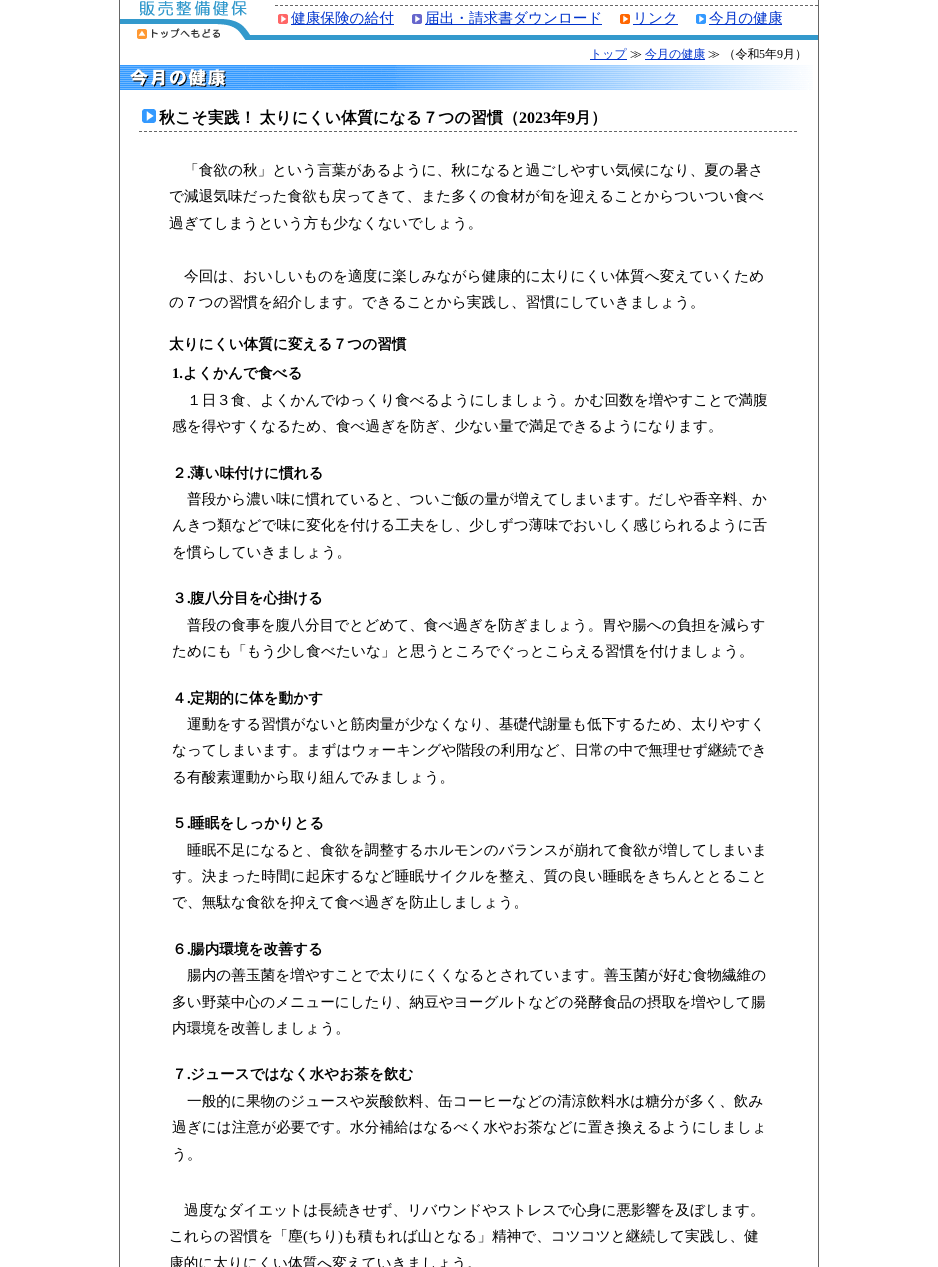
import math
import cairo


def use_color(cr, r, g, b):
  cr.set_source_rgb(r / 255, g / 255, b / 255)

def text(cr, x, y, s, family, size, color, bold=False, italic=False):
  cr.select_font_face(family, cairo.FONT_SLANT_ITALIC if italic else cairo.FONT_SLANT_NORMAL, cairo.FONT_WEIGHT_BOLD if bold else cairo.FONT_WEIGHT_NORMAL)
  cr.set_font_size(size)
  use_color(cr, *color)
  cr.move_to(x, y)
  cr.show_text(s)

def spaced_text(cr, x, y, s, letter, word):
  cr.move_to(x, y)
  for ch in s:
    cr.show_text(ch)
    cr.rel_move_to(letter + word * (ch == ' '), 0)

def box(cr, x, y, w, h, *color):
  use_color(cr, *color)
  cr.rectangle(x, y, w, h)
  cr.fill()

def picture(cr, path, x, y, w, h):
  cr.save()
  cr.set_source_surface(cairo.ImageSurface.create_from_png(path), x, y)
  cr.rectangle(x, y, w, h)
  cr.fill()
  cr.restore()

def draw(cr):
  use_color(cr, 255, 255, 255)
  cr.paint()
  box(cr, 119, 0, 1, 1267, 102, 102, 102)
  picture(cr, "img_01.png", 120, 0, 127, 24)
  picture(cr, "img_02.png", 137, 24, 138, 16)
  picture(cr, "img_03.png", 275, 5, 543, 1)
  picture(cr, "img_04.png", 278, 14, 10, 10)
  box(cr, 291, 24, 103, 1, 0, 51, 204)
  picture(cr, "img_05.png", 412, 14, 10, 10)
  box(cr, 425, 24, 177, 1, 0, 51, 204)
  picture(cr, "img_06.png", 620, 14, 10, 10)
  box(cr, 633, 24, 45, 1, 0, 51, 204)
  picture(cr, "img_07.png", 696, 14, 10, 10)
  box(cr, 709, 24, 73, 1, 0, 51, 204)
  box(cr, 275, 35, 543, 5, 51, 153, 204)
  box(cr, 818, 0, 1, 1267, 102, 102, 102)
  box(cr, 590, 59, 37, 1, 0, 51, 204)
  box(cr, 645, 59, 60, 1, 0, 51, 204)
  picture(cr, "img_08.png", 120, 65, 693, 25)
  picture(cr, "img_09.png", 142, 109, 14, 14)
  picture(cr, "img_10.png", 139, 131, 658, 1)
  text(cr, 291, 23, "健康保険の給付", "WenQuanYi Zen Hei Medium", 14.65, (0, 51, 204))
  text(cr, 425, 23, "届出・請求書ダウンロード", "WenQuanYi Zen Hei Medium", 14.65, (0, 51, 204))
  text(cr, 633, 23, "リンク", "WenQuanYi Zen Hei Medium", 14.65, (0, 51, 204))
  text(cr, 709, 23, "今月の健康", "WenQuanYi Zen Hei Medium", 14.65, (0, 51, 204))
  text(cr, 590, 58, "トップ", "WenQuanYi Zen Hei Medium", 12, (0, 51, 204))
  text(cr, 630, 58, "≫", "WenQuanYi Zen Hei Medium", 12, (0, 0, 0))
  text(cr, 645, 58, "今月の健康", "WenQuanYi Zen Hei Medium", 12, (0, 51, 204))
  text(cr, 708, 58, "≫ （令和", "WenQuanYi Zen Hei Medium", 12, (0, 0, 0))
  text(cr, 759, 58, "5", "Liberation Serif", 12, (0, 0, 0))
  text(cr, 765, 58, "年", "WenQuanYi Zen Hei Medium", 12, (0, 0, 0))
  text(cr, 777, 58, "9", "Liberation Serif", 12, (0, 0, 0))
  text(cr, 783, 58, "月）", "WenQuanYi Zen Hei Medium", 12, (0, 0, 0))
  cr.select_font_face("WenQuanYi Zen Hei", cairo.FONT_SLANT_NORMAL, cairo.FONT_WEIGHT_BOLD)
  cr.set_font_size(16)
  spaced_text(cr, 159, 123, "秋こそ実践！ 太りにくい体質になる７つの習慣（", 0, -1)
  text(cr, 519, 123, "2023", "Liberation Serif", 16, (0, 0, 0), bold=True)
  text(cr, 551, 123, "年", "WenQuanYi Zen Hei", 16, (0, 0, 0), bold=True)
  text(cr, 567, 123, "9", "Liberation Serif", 16, (0, 0, 0), bold=True)
  text(cr, 575, 123, "月）", "WenQuanYi Zen Hei", 16, (0, 0, 0), bold=True)
  text(cr, 184, 175, "「食欲の秋」という言葉があるように、秋になると過ごしやすい気候になり、夏の暑さ", "WenQuanYi Zen Hei Medium", 14.65, (0, 0, 0))
  text(cr, 169, 201, "で減退気味だった食欲も戻ってきて、また多くの食材が旬を迎えることからついつい食べ", "WenQuanYi Zen Hei Medium", 14.65, (0, 0, 0))
  text(cr, 169, 228, "過ぎてしまうという方も少なくないでしょう。", "WenQuanYi Zen Hei Medium", 14.65, (0, 0, 0))
  text(cr, 184, 281, "今回は、おいしいものを適度に楽しみながら健康的に太りにくい体質へ変えていくため", "WenQuanYi Zen Hei Medium", 14.65, (0, 0, 0))
  text(cr, 169, 307, "の７つの習慣を紹介します。できることから実践し、習慣にしていきましょう。", "WenQuanYi Zen Hei Medium", 14.65, (0, 0, 0))
  text(cr, 169, 349, "太りにくい体質に変える７つの習慣", "WenQuanYi Zen Hei", 14.65, (0, 0, 0), bold=True)
  text(cr, 172, 378, "1.", "Liberation Serif", 14.65, (0, 0, 0), bold=True)
  text(cr, 183, 378, "よくかんで食べる", "WenQuanYi Zen Hei", 14.65, (0, 0, 0), bold=True)
  text(cr, 187, 405, "１日３食、よくかんでゆっくり食べるようにしましょう。かむ回数を増やすことで満腹", "WenQuanYi Zen Hei Medium", 14.65, (0, 0, 0))
  text(cr, 172, 431, "感を得やすくなるため、食べ過ぎを防ぎ、少ない量で満足できるようになります。", "WenQuanYi Zen Hei Medium", 14.65, (0, 0, 0))
  text(cr, 172, 478, "２", "WenQuanYi Zen Hei", 14.65, (0, 0, 0), bold=True)
  text(cr, 187, 478, ".", "Liberation Serif", 14.65, (0, 0, 0), bold=True)
  text(cr, 190, 478, "薄い味付けに慣れる", "WenQuanYi Zen Hei", 14.65, (0, 0, 0), bold=True)
  text(cr, 187, 504, "普段から濃い味に慣れていると、ついご飯の量が増えてしまいます。だしや香辛料、か", "WenQuanYi Zen Hei Medium", 14.65, (0, 0, 0))
  text(cr, 172, 530, "んきつ類などで味に変化を付ける工夫をし、少しずつ薄味でおいしく感じられるように舌", "WenQuanYi Zen Hei Medium", 14.65, (0, 0, 0))
  text(cr, 172, 557, "を慣らしていきましょう。", "WenQuanYi Zen Hei Medium", 14.65, (0, 0, 0))
  text(cr, 172, 603, "３", "WenQuanYi Zen Hei", 14.65, (0, 0, 0), bold=True)
  text(cr, 187, 603, ".", "Liberation Serif", 14.65, (0, 0, 0), bold=True)
  text(cr, 190, 603, "腹八分目を心掛ける", "WenQuanYi Zen Hei", 14.65, (0, 0, 0), bold=True)
  text(cr, 187, 630, "普段の食事を腹八分目でとどめて、食べ過ぎを防ぎましょう。胃や腸への負担を減らす", "WenQuanYi Zen Hei Medium", 14.65, (0, 0, 0))
  text(cr, 172, 656, "ためにも「もう少し食べたいな」と思うところでぐっとこらえる習慣を付けましょう。", "WenQuanYi Zen Hei Medium", 14.65, (0, 0, 0))
  text(cr, 172, 703, "４", "WenQuanYi Zen Hei", 14.65, (0, 0, 0), bold=True)
  text(cr, 187, 703, ".", "Liberation Serif", 14.65, (0, 0, 0), bold=True)
  text(cr, 190, 703, "定期的に体を動かす", "WenQuanYi Zen Hei", 14.65, (0, 0, 0), bold=True)
  text(cr, 187, 729, "運動をする習慣がないと筋肉量が少なくなり、基礎代謝量も低下するため、太りやすく", "WenQuanYi Zen Hei Medium", 14.65, (0, 0, 0))
  text(cr, 172, 755, "なってしまいます。まずはウォーキングや階段の利用など、日常の中で無理せず継続でき", "WenQuanYi Zen Hei Medium", 14.65, (0, 0, 0))
  text(cr, 172, 782, "る有酸素運動から取り組んでみましょう。", "WenQuanYi Zen Hei Medium", 14.65, (0, 0, 0))
  text(cr, 172, 828, "５", "WenQuanYi Zen Hei", 14.65, (0, 0, 0), bold=True)
  text(cr, 187, 828, ".", "Liberation Serif", 14.65, (0, 0, 0), bold=True)
  text(cr, 190, 828, "睡眠をしっかりとる", "WenQuanYi Zen Hei", 14.65, (0, 0, 0), bold=True)
  text(cr, 187, 855, "睡眠不足になると、食欲を調整するホルモンのバランスが崩れて食欲が増してしまいま", "WenQuanYi Zen Hei Medium", 14.65, (0, 0, 0))
  text(cr, 172, 881, "す。決まった時間に起床するなど睡眠サイクルを整え、質の良い睡眠をきちんととること", "WenQuanYi Zen Hei Medium", 14.65, (0, 0, 0))
  text(cr, 172, 907, "で、無駄な食欲を抑えて食べ過ぎを防止しましょう。", "WenQuanYi Zen Hei Medium", 14.65, (0, 0, 0))
  text(cr, 172, 954, "６", "WenQuanYi Zen Hei", 14.65, (0, 0, 0), bold=True)
  text(cr, 187, 954, ".", "Liberation Serif", 14.65, (0, 0, 0), bold=True)
  text(cr, 190, 954, "腸内環境を改善する", "WenQuanYi Zen Hei", 14.65, (0, 0, 0), bold=True)
  text(cr, 187, 980, "腸内の善玉菌を増やすことで太りにくくなるとされています。善玉菌が好む食物繊維の", "WenQuanYi Zen Hei Medium", 14.65, (0, 0, 0))
  text(cr, 172, 1007, "多い野菜中心のメニューにしたり、納豆やヨーグルトなどの発酵食品の摂取を増やして腸", "WenQuanYi Zen Hei Medium", 14.65, (0, 0, 0))
  text(cr, 172, 1033, "内環境を改善しましょう。", "WenQuanYi Zen Hei Medium", 14.65, (0, 0, 0))
  text(cr, 172, 1079, "７", "WenQuanYi Zen Hei", 14.65, (0, 0, 0), bold=True)
  text(cr, 187, 1079, ".", "Liberation Serif", 14.65, (0, 0, 0), bold=True)
  text(cr, 190, 1079, "ジュースではなく水やお茶を飲む", "WenQuanYi Zen Hei", 14.65, (0, 0, 0), bold=True)
  text(cr, 187, 1106, "一般的に果物のジュースや炭酸飲料、缶コーヒーなどの清涼飲料水は糖分が多く、飲み", "WenQuanYi Zen Hei Medium", 14.65, (0, 0, 0))
  text(cr, 172, 1132, "過ぎには注意が必要です。水分補給はなるべく水やお茶などに置き換えるようにしましょ", "WenQuanYi Zen Hei Medium", 14.65, (0, 0, 0))
  text(cr, 172, 1159, "う。", "WenQuanYi Zen Hei Medium", 14.65, (0, 0, 0))
  text(cr, 184, 1215, "過度なダイエットは長続きせず、リバウンドやストレスで心身に悪影響を及ぼします。", "WenQuanYi Zen Hei Medium", 14.65, (0, 0, 0))
  text(cr, 169, 1241, "これらの習慣を「塵", "WenQuanYi Zen Hei Medium", 14.65, (0, 0, 0))
  text(cr, 303, 1241, "(", "Liberation Serif", 14.65, (0, 0, 0))
  text(cr, 308, 1241, "ちり", "WenQuanYi Zen Hei Medium", 14.65, (0, 0, 0))
  text(cr, 338, 1241, ")", "Liberation Serif", 14.65, (0, 0, 0))
  text(cr, 343, 1241, "も積もれば山となる」精神で、コツコツと継続して実践し、健", "WenQuanYi Zen Hei Medium", 14.65, (0, 0, 0))
  text(cr, 169, 1268, "康的に太りにくい体質へ変えていきましょう。", "WenQuanYi Zen Hei Medium", 14.65, (0, 0, 0))


surface = cairo.ImageSurface(cairo.FORMAT_RGB24, 938, 1267)
cr = cairo.Context(surface)
options = cairo.FontOptions()
options.set_hint_metrics(cairo.HINT_METRICS_OFF)
options.set_hint_style(cairo.HINT_STYLE_NONE)
cr.set_font_options(options)
cr.set_miter_limit(4)
draw(cr)
surface.write_to_png("out.png")
